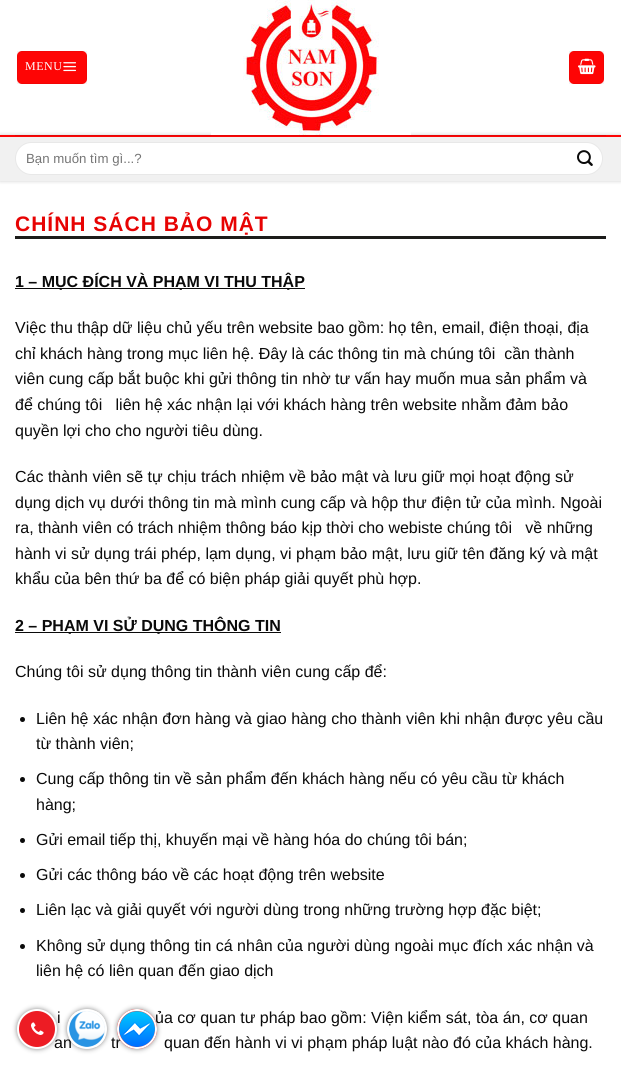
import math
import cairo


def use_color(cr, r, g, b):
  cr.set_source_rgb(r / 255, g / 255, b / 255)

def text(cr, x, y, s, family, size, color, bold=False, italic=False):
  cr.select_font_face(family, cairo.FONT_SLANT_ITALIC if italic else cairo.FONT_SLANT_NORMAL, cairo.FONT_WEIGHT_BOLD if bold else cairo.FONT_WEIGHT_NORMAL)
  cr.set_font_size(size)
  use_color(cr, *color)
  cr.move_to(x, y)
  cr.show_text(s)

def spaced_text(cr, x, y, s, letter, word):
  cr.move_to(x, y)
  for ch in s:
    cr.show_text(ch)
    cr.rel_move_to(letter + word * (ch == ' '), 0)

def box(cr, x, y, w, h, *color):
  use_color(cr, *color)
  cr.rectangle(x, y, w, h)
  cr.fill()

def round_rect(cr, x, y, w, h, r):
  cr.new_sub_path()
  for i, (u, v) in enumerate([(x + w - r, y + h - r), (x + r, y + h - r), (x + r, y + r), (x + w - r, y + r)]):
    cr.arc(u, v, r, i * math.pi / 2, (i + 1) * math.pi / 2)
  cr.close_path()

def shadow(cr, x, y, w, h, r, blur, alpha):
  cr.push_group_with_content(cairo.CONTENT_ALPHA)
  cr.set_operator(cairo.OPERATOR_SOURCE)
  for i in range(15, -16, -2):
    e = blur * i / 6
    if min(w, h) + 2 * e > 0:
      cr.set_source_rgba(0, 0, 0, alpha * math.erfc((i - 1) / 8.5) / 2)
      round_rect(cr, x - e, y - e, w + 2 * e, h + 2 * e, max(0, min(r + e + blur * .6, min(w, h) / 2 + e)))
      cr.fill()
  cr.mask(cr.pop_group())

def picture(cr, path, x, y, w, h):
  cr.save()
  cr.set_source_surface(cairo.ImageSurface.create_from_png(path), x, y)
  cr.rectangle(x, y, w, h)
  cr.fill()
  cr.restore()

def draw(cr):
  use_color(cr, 255, 255, 255)
  cr.paint()
  use_color(cr, 254, 5, 5)
  round_rect(cr, 17, 51, 70, 33, 5)
  cr.fill()
  cr.rectangle(17.5, 51.5, 69, 32)
  cr.set_source_rgba(0, 0, 0, 0.05)
  cr.set_line_width(1)
  cr.stroke()
  picture(cr, "img_01.png", 63, 62, 13, 10)
  use_color(cr, 0, 0, 0)
  shadow(cr, 0, 135, 621, 46, 0, 2, 0.2)
  picture(cr, "img_02.png", 211, 0, 200, 135)
  use_color(cr, 254, 5, 5)
  round_rect(cr, 569, 51, 35, 33, 5)
  cr.fill()
  cr.rectangle(569.5, 51.5, 34, 32)
  cr.set_source_rgba(0, 0, 0, 0.05)
  cr.stroke()
  picture(cr, "img_03.png", 578, 58, 18, 17)
  box(cr, 0, 135, 621, 2, 254, 5, 5)
  box(cr, 15, 135, 591, 1, 230, 6, 6)
  box(cr, 0, 137, 621, 44, 241, 241, 241)
  use_color(cr, 255, 255, 255)
  round_rect(cr, 15, 142, 588, 33, 16.5)
  cr.fill()
  round_rect(cr, 15.5, 142.5, 587, 32, 16)
  cr.set_source_rgba(0, 0, 0, 0.09)
  cr.stroke()
  picture(cr, "img_04.png", 577, 150, 16, 16)
  box(cr, 15, 236, 591, 3, 28, 28, 26)
  box(cr, 15, 288, 290, 1, 10, 10, 10)
  box(cr, 15, 632, 266, 1, 10, 10, 10)
  cr.arc(22.5, 719.5, 2.5, 0, 2 * math.pi)
  cr.fill()
  cr.arc(22.5, 779.5, 2.5, 0, 2 * math.pi)
  cr.fill()
  cr.arc(22.5, 840.5, 2.5, 0, 2 * math.pi)
  cr.fill()
  cr.arc(22.5, 875.5, 2.5, 0, 2 * math.pi)
  cr.fill()
  cr.arc(22.5, 910.5, 2.5, 0, 2 * math.pi)
  cr.fill()
  cr.arc(22.5, 946.5, 2.5, 0, 2 * math.pi)
  cr.fill()
  use_color(cr, 136, 136, 136)
  shadow(cr, 17, 1009, 40, 40, 20, 2.5, 1)
  shadow(cr, 67, 1009, 40, 40, 20, 2.5, 1)
  shadow(cr, 117, 1009, 40, 40, 20, 2.5, 1)
  cr.select_font_face("Liberation Serif")
  cr.set_font_size(12)
  use_color(cr, 255, 255, 255)
  spaced_text(cr, 25, 70, "MENU", 0.5, 0)
  text(cr, 26, 163, "Bạn muốn tìm gì...?", "Liberation Sans", 13.25, (117, 117, 117))
  cr.select_font_face("Liberation Sans", cairo.FONT_SLANT_NORMAL, cairo.FONT_WEIGHT_BOLD)
  cr.set_font_size(21)
  use_color(cr, 231, 3, 3)
  spaced_text(cr, 15, 231, "CHÍNH SÁCH BẢO MẬT", 1, 0)
  text(cr, 15, 287, "1 – MỤC ĐÍCH VÀ PHẠM VI THU THẬP", "Liberation Sans", 16, (10, 10, 10), bold=True)
  text(cr, 15, 333, "Việc thu thập dữ liệu chủ yếu trên website bao gồm: họ tên, email, điện thoại, địa", "Liberation Sans", 16, (10, 10, 10))
  text(cr, 15, 359, "chỉ khách hàng trong mục liên hệ. Đây là các thông tin mà chúng tôi  cần thành", "Liberation Sans", 16, (10, 10, 10))
  text(cr, 15, 384, "viên cung cấp bắt buộc khi gửi thông tin nhờ tư vấn hay muốn mua sản phẩm và", "Liberation Sans", 16, (10, 10, 10))
  text(cr, 15, 410, "để chúng tôi   liên hệ xác nhận lại với khách hàng trên website nhằm đảm bảo", "Liberation Sans", 16, (10, 10, 10))
  text(cr, 15, 436, "quyền lợi cho cho người tiêu dùng.", "Liberation Sans", 16, (10, 10, 10))
  text(cr, 15, 482, "Các thành viên sẽ tự chịu trách nhiệm về bảo mật và lưu giữ mọi hoạt động sử", "Liberation Sans", 16, (10, 10, 10))
  text(cr, 15, 508, "dụng dịch vụ dưới thông tin mà mình cung cấp và hộp thư điện tử của mình. Ngoài", "Liberation Sans", 16, (10, 10, 10))
  text(cr, 15, 533, "ra, thành viên có trách nhiệm thông báo kịp thời cho webiste chúng tôi   về những", "Liberation Sans", 16, (10, 10, 10))
  text(cr, 15, 559, "hành vi sử dụng trái phép, lạm dụng, vi phạm bảo mật, lưu giữ tên đăng ký và mật", "Liberation Sans", 16, (10, 10, 10))
  text(cr, 15, 584, "khẩu của bên thứ ba để có biện pháp giải quyết phù hợp.", "Liberation Sans", 16, (10, 10, 10))
  text(cr, 15, 631, "2 – PHẠM VI SỬ DỤNG THÔNG TIN", "Liberation Sans", 16, (10, 10, 10), bold=True)
  text(cr, 15, 677, "Chúng tôi sử dụng thông tin thành viên cung cấp để:", "Liberation Sans", 16, (10, 10, 10))
  text(cr, 36, 724, "Liên hệ xác nhận đơn hàng và giao hàng cho thành viên khi nhận được yêu cầu", "Liberation Sans", 16, (10, 10, 10))
  text(cr, 36, 749, "từ thành viên;", "Liberation Sans", 16, (10, 10, 10))
  text(cr, 36, 784, "Cung cấp thông tin về sản phẩm đến khách hàng nếu có yêu cầu từ khách", "Liberation Sans", 16, (10, 10, 10))
  text(cr, 36, 810, "hàng;", "Liberation Sans", 16, (10, 10, 10))
  text(cr, 36, 845, "Gửi email tiếp thị, khuyến mại về hàng hóa do chúng tôi bán;", "Liberation Sans", 16, (10, 10, 10))
  text(cr, 36, 880, "Gửi các thông báo về các hoạt động trên website", "Liberation Sans", 16, (10, 10, 10))
  text(cr, 36, 915, "Liên lạc và giải quyết với người dùng trong những trường hợp đặc biệt;", "Liberation Sans", 16, (10, 10, 10))
  text(cr, 36, 951, "Không sử dụng thông tin cá nhân của người dùng ngoài mục đích xác nhận và", "Liberation Sans", 16, (10, 10, 10))
  text(cr, 36, 976, "liên hệ có liên quan đến giao dịch", "Liberation Sans", 16, (10, 10, 10))
  text(cr, 57, 1023, "i", "Liberation Sans", 16, (10, 10, 10))
  text(cr, 155, 1023, "ủa cơ quan tư pháp bao gồm: Viện kiểm sát, tòa án, cơ quan", "Liberation Sans", 16, (10, 10, 10))
  text(cr, 54, 1048, "an", "Liberation Sans", 16, (10, 10, 10))
  text(cr, 111, 1048, "tr", "Liberation Sans", 16, (10, 10, 10))
  text(cr, 164, 1048, "quan đến hành vi vi phạm pháp luật nào đó của khách hàng.", "Liberation Sans", 16, (10, 10, 10))
  use_color(cr, 237, 28, 36)
  cr.new_path()
  cr.arc(37, 1029, 19, 0, 2 * math.pi)
  cr.fill_preserve()
  use_color(cr, 255, 255, 255)
  cr.set_line_width(2)
  cr.stroke()
  picture(cr, "img_05.png", 31, 1022, 13, 13)
  picture(cr, "img_06.png", 69, 1011, 36, 36)
  cr.arc(87, 1029, 19, 0, 2 * math.pi)
  cr.stroke()
  use_color(cr, 239, 3, 3)
  cr.arc(137, 1029, 20, 0, 2 * math.pi)
  cr.fill()
  picture(cr, "img_07.png", 119, 1011, 36, 36)
  cr.arc(137, 1029, 19, 0, 2 * math.pi)
  use_color(cr, 255, 255, 255)
  cr.stroke()


surface = cairo.ImageSurface(cairo.FORMAT_RGB24, 621, 1074)
cr = cairo.Context(surface)
options = cairo.FontOptions()
options.set_hint_metrics(cairo.HINT_METRICS_OFF)
options.set_hint_style(cairo.HINT_STYLE_NONE)
cr.set_font_options(options)
cr.set_miter_limit(4)
draw(cr)
surface.write_to_png("out.png")
